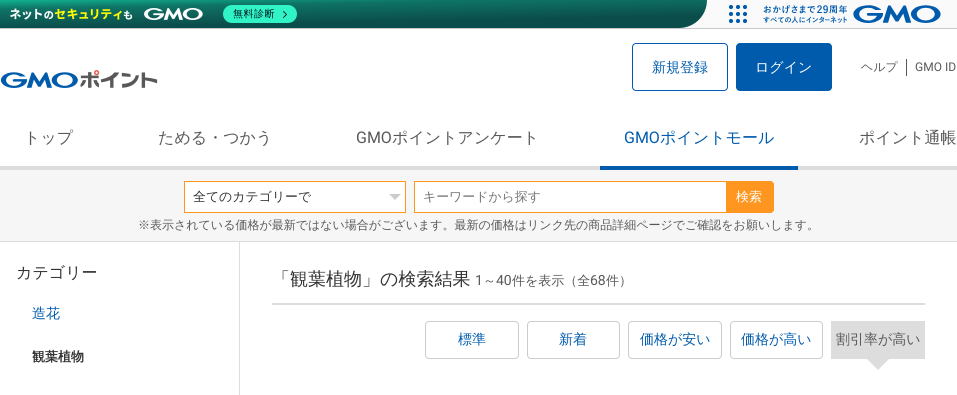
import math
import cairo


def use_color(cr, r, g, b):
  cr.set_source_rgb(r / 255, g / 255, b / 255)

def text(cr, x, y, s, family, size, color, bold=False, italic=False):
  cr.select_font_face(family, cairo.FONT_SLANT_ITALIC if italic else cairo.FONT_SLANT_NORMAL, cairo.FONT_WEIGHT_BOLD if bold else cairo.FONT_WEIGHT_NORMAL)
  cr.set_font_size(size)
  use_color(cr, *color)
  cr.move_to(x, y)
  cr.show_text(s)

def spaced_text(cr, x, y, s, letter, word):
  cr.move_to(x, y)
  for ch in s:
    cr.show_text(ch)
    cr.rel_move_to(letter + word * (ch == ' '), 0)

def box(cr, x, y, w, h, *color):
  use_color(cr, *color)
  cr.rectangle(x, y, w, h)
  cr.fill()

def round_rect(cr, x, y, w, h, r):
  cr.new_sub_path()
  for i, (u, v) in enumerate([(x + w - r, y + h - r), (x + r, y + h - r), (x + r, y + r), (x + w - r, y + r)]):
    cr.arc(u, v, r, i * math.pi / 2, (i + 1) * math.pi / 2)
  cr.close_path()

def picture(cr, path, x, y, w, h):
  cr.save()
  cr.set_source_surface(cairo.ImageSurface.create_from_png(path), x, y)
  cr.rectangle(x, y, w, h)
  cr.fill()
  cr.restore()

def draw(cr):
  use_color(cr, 255, 255, 255)
  cr.paint()
  box(cr, 679, 0, 278, 28, 250, 250, 250)
  box(cr, 0, 28, 957, 1, 200, 200, 200)
  gradient = cairo.LinearGradient(353, -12, 354, 40)
  gradient.add_color_stop_rgba(0, 0.075, 0.831, 0.647, 1)
  gradient.add_color_stop_rgba(0.28, 0.055, 0.451, 0.396, 1)
  gradient.add_color_stop_rgba(0.66, 0.043, 0.302, 0.294, 1)
  cr.set_source(gradient)
  cr.new_path()
  cr.move_to(0, 0)
  cr.line_to(707, 0)
  cr.curve_to(707, 15.5, 694.5, 28, 679, 28)
  cr.line_to(0, 28)
  cr.close_path()
  cr.fill()
  picture(cr, "img_01.png", 10, 8, 193, 12)
  use_color(cr, 48, 244, 197)
  round_rect(cr, 223, 5, 74, 18, 9)
  cr.fill()
  cr.new_path()
  cr.move_to(283.5, 11.5)
  cr.line_to(286.5, 14.5)
  cr.line_to(283.5, 17.5)
  use_color(cr, 2, 23, 37)
  cr.set_line_width(0.9)
  cr.set_line_cap(cairo.LINE_CAP_ROUND)
  cr.set_line_join(cairo.LINE_JOIN_ROUND)
  cr.stroke()
  picture(cr, "img_02.png", 728, 4, 20, 20)
  picture(cr, "img_03.png", 763, 5, 178, 18)
  round_rect(cr, 632.5, 43.5, 95, 47, 3.5)
  use_color(cr, 0, 91, 172)
  cr.set_line_width(1)
  cr.set_line_cap(cairo.LINE_CAP_BUTT)
  cr.set_line_join(cairo.LINE_JOIN_MITER)
  cr.stroke()
  round_rect(cr, 736, 43, 96, 48, 4)
  cr.fill()
  box(cr, 906, 59, 1, 17, 90, 88, 88)
  picture(cr, "img_04.png", 0, 70, 158, 18)
  box(cr, 0, 166, 957, 4, 221, 221, 221)
  box(cr, 600, 166, 198, 4, 0, 91, 172)
  box(cr, 0, 170, 957, 71, 246, 246, 246)
  box(cr, 0, 241, 957, 1, 221, 221, 221)
  cr.rectangle(184.5, 181.5, 221, 31)
  use_color(cr, 255, 150, 32)
  cr.stroke()
  box(cr, 185, 182, 220, 30, 255, 255, 255)
  use_color(cr, 204, 204, 204)
  cr.new_path()
  cr.move_to(389, 194)
  cr.line_to(401, 194)
  cr.line_to(395, 200)
  cr.close_path()
  cr.fill()
  cr.new_path()
  cr.move_to(414.5, 181.5)
  cr.line_to(770, 181.5)
  cr.curve_to(772, 181.5, 773.5, 183, 773.5, 185)
  cr.line_to(773.5, 209)
  cr.curve_to(773.5, 211, 772, 212.5, 770, 212.5)
  cr.line_to(414.5, 212.5)
  cr.close_path()
  use_color(cr, 255, 150, 32)
  cr.stroke()
  box(cr, 415, 182, 358, 30, 255, 255, 255)
  use_color(cr, 255, 150, 32)
  cr.new_path()
  cr.move_to(726, 181)
  cr.line_to(770, 181)
  cr.curve_to(772, 181, 774, 183, 774, 185)
  cr.line_to(774, 209)
  cr.curve_to(774, 211, 772, 213, 770, 213)
  cr.line_to(726, 213)
  cr.close_path()
  cr.fill()
  box(cr, 239, 242, 1, 153, 221, 221, 221)
  box(cr, 272, 303, 653, 2, 221, 221, 221)
  round_rect(cr, 425.5, 321.5, 93, 37, 3.5)
  use_color(cr, 204, 204, 204)
  cr.stroke()
  round_rect(cr, 527.5, 321.5, 92, 37, 3.5)
  cr.stroke()
  round_rect(cr, 628.5, 321.5, 93, 37, 3.5)
  cr.stroke()
  round_rect(cr, 730.5, 321.5, 92, 37, 3.5)
  cr.stroke()
  box(cr, 831, 321, 94, 38, 221, 221, 221)
  cr.new_path()
  cr.move_to(866, 358)
  cr.line_to(890, 358)
  cr.line_to(878, 370)
  cr.close_path()
  cr.fill()
  cr.select_font_face("WenQuanYi Zen Hei Medium")
  cr.set_font_size(10)
  use_color(cr, 2, 23, 37)
  spaced_text(cr, 233, 17, "無料診断", 0.5, 0)
  text(cr, 652, 72, "新規登録", "WenQuanYi Zen Hei Medium", 14, (0, 91, 172))
  text(cr, 755, 72, "ログイン", "WenQuanYi Zen Hei Medium", 14, (255, 255, 255))
  text(cr, 861, 71, "ヘルプ", "WenQuanYi Zen Hei Medium", 12, (90, 88, 88))
  text(cr, 915, 71, "GMO ID", "Roboto", 12, (90, 88, 88))
  text(cr, 24, 143, "トップ", "WenQuanYi Zen Hei Medium", 16, (90, 88, 88))
  text(cr, 158, 143, "ためる・つかう", "WenQuanYi Zen Hei Medium", 16, (90, 88, 88))
  text(cr, 356, 143, "GMO", "Roboto", 16, (90, 88, 88))
  text(cr, 392, 143, "ポイントアンケート", "WenQuanYi Zen Hei Medium", 16, (90, 88, 88))
  text(cr, 624, 143, "GMO", "Roboto", 16, (0, 91, 172))
  text(cr, 660, 143, "ポイントモール", "WenQuanYi Zen Hei Medium", 16, (0, 91, 172))
  text(cr, 859, 143, "ポイント通帳", "WenQuanYi Zen Hei Medium", 16, (90, 88, 88))
  text(cr, 193, 201, "全てのカテゴリーで", "WenQuanYi Zen Hei Medium", 12.9, (50, 50, 50))
  text(cr, 423, 201, "キーワードから探す", "WenQuanYi Zen Hei Medium", 12.9, (117, 117, 117))
  text(cr, 736, 201, "検索", "WenQuanYi Zen Hei Medium", 13, (255, 255, 255))
  text(cr, 138, 229, "※表示されている価格が最新ではない場合がございます。最新の価格はリンク先の商品詳細ページでご確認をお願いします。", "WenQuanYi Zen Hei Medium", 12, (90, 88, 88))
  text(cr, 16, 278, "カテゴリー", "WenQuanYi Zen Hei Medium", 16, (50, 50, 50))
  text(cr, 32, 318, "造花", "WenQuanYi Zen Hei Medium", 14, (0, 91, 172))
  text(cr, 32, 361, "観葉植物", "WenQuanYi Zen Hei", 13, (50, 50, 50), bold=True)
  text(cr, 272, 285, "「観葉植物」の検索結果", "WenQuanYi Zen Hei Medium", 18, (50, 50, 50))
  text(cr, 475, 285, "1", "Roboto", 14, (90, 88, 88))
  text(cr, 483, 285, "～", "WenQuanYi Zen Hei Medium", 13, (90, 88, 88))
  text(cr, 496, 285, "40", "Roboto", 14, (90, 88, 88))
  text(cr, 512, 285, "件を表示（全", "WenQuanYi Zen Hei Medium", 13, (90, 88, 88))
  text(cr, 590, 285, "68", "Roboto", 14, (90, 88, 88))
  text(cr, 606, 285, "件）", "WenQuanYi Zen Hei Medium", 13, (90, 88, 88))
  text(cr, 458, 344, "標準", "WenQuanYi Zen Hei Medium", 14, (0, 91, 172))
  text(cr, 559, 344, "新着", "WenQuanYi Zen Hei Medium", 14, (0, 91, 172))
  text(cr, 640, 344, "価格が安い", "WenQuanYi Zen Hei Medium", 14, (0, 91, 172))
  text(cr, 741, 344, "価格が高い", "WenQuanYi Zen Hei Medium", 14, (0, 91, 172))
  text(cr, 836, 344, "割引率が高い", "WenQuanYi Zen Hei Medium", 14, (90, 88, 88))


surface = cairo.ImageSurface(cairo.FORMAT_RGB24, 957, 395)
cr = cairo.Context(surface)
options = cairo.FontOptions()
options.set_hint_metrics(cairo.HINT_METRICS_OFF)
options.set_hint_style(cairo.HINT_STYLE_NONE)
cr.set_font_options(options)
cr.set_miter_limit(4)
draw(cr)
surface.write_to_png("out.png")
